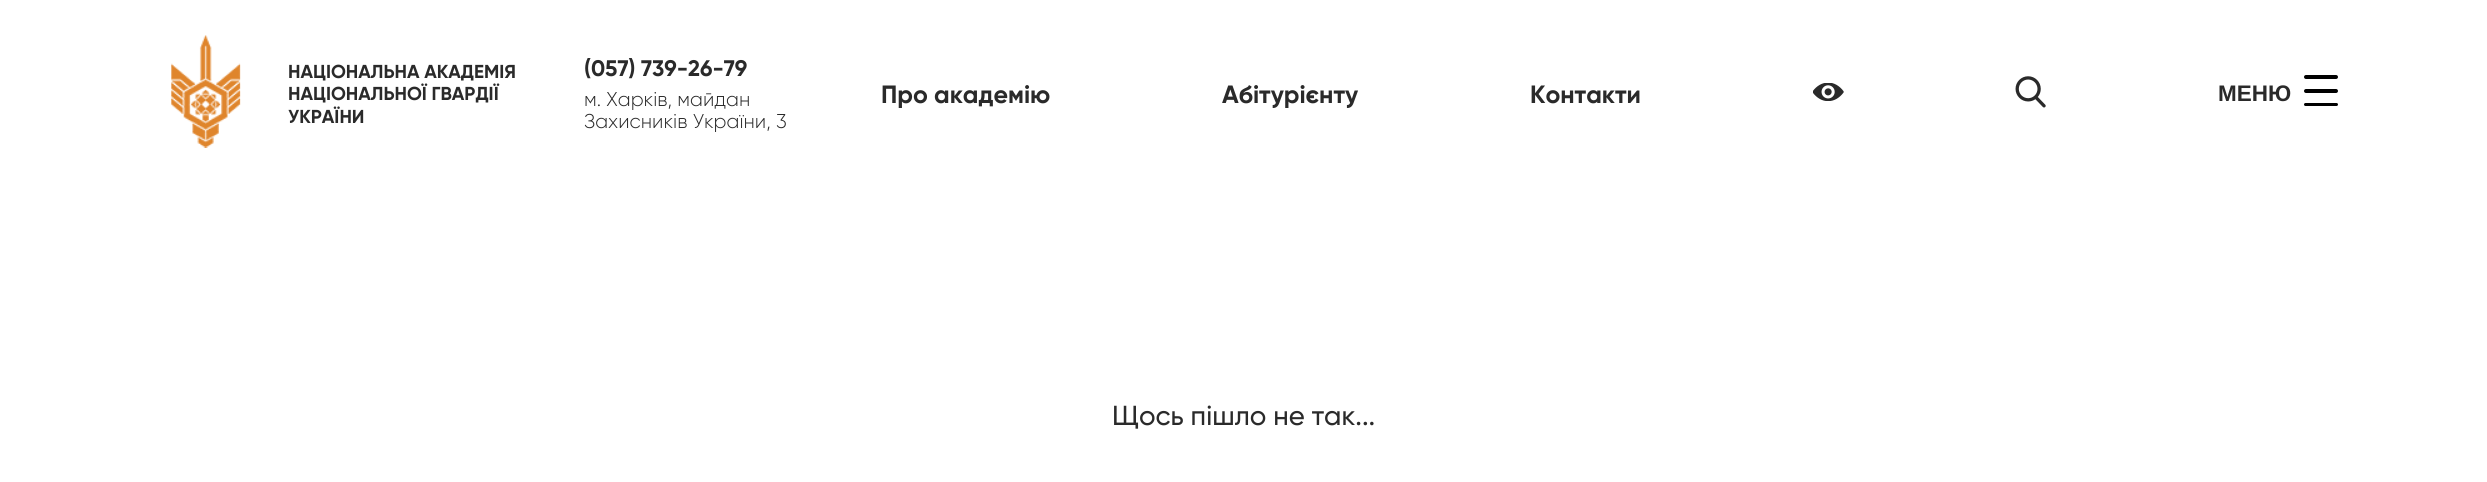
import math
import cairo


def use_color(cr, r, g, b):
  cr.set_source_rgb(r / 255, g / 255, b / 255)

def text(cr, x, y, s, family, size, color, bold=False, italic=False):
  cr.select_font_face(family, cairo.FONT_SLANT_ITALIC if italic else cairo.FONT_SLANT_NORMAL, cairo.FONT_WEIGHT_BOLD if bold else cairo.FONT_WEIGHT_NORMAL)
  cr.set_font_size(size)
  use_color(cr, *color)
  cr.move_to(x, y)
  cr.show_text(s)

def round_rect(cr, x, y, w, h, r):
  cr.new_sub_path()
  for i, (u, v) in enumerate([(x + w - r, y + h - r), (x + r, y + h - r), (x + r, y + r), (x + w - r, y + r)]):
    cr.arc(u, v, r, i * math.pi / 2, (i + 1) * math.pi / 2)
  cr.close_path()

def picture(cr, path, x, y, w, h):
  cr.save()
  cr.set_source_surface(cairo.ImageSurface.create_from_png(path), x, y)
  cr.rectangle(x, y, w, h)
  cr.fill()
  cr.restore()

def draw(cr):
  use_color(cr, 255, 255, 255)
  cr.paint()
  picture(cr, "img_01.png", 171, 35, 70, 113)
  picture(cr, "img_02.png", 1813, 83, 31, 18)
  picture(cr, "img_03.png", 2015, 76, 31, 32)
  use_color(cr, 0, 0, 0)
  round_rect(cr, 2304, 75, 34, 4, 2)
  cr.fill()
  round_rect(cr, 2304, 89, 34, 4, 2)
  cr.fill()
  round_rect(cr, 2304, 103, 34, 3, 1.5)
  cr.fill()
  text(cr, 288, 78, "НАЦІОНАЛЬНА АКАДЕМІЯ", "Gilroy", 18.75, (42, 42, 42), bold=True)
  text(cr, 288, 100, "НАЦІОНАЛЬНОЇ ГВАРДІЇ", "Gilroy", 18.75, (42, 42, 42), bold=True)
  text(cr, 288, 123, "УКРАЇНИ", "Gilroy", 18.75, (42, 42, 42), bold=True)
  text(cr, 584, 76, "(057) 739-26-79", "Gilroy", 22.5, (42, 42, 42), bold=True)
  text(cr, 584, 106, "м. Харків, майдан", "Gilroy Light", 20, (42, 42, 42))
  text(cr, 584, 128, "Захисників України, 3", "Gilroy Light", 20, (42, 42, 42))
  text(cr, 881, 103, "Про академію", "Gilroy", 25, (42, 42, 42), bold=True)
  text(cr, 1222, 103, "Абітурієнту", "Gilroy", 25, (42, 42, 42), bold=True)
  text(cr, 1530, 103, "Контакти", "Gilroy", 25, (42, 42, 42), bold=True)
  text(cr, 2218, 101, "МЕНЮ", "Liberation Sans", 22.5, (42, 42, 42), bold=True)
  text(cr, 1112, 425, "Щось пішло не так...", "Gilroy Medium", 27.5, (42, 42, 42))


surface = cairo.ImageSurface(cairo.FORMAT_RGB24, 2487, 482)
cr = cairo.Context(surface)
options = cairo.FontOptions()
options.set_hint_metrics(cairo.HINT_METRICS_OFF)
options.set_hint_style(cairo.HINT_STYLE_NONE)
cr.set_font_options(options)
cr.set_miter_limit(4)
draw(cr)
surface.write_to_png("out.png")
